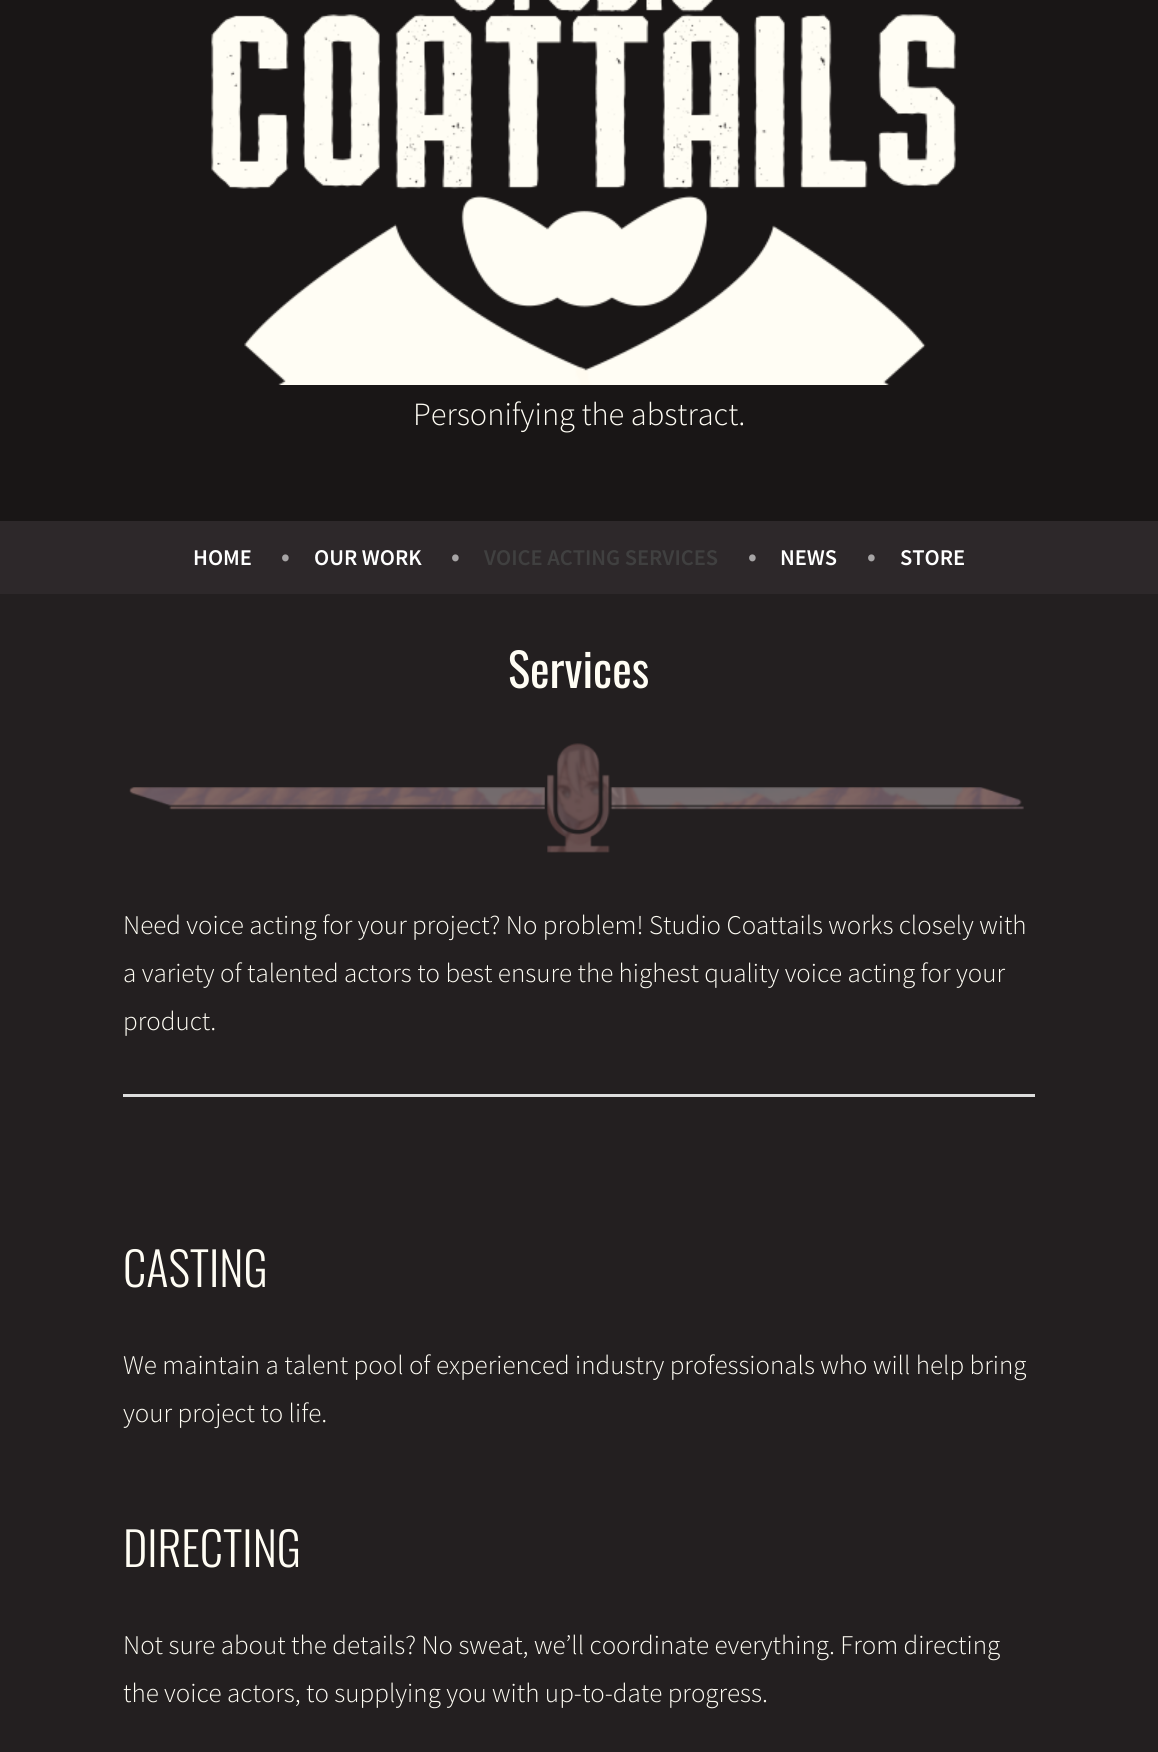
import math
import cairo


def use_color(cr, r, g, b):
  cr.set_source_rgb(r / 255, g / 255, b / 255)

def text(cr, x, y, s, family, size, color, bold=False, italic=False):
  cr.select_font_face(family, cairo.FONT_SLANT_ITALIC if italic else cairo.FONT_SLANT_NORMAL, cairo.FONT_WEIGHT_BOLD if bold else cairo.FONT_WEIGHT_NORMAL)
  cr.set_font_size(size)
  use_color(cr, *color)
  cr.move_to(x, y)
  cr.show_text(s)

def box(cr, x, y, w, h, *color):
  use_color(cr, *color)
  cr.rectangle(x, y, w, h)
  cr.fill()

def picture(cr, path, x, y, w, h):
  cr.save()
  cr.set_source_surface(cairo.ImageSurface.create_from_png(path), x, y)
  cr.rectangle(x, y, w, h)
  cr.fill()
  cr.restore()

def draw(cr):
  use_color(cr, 25, 22, 22)
  cr.paint()
  picture(cr, "img_01.png", 211, 0, 745, 385)
  box(cr, 0, 521, 1158, 73, 45, 40, 42)
  box(cr, 0, 594, 1158, 1158, 35, 31, 32)
  picture(cr, "img_02.png", 129, 743, 895, 110)
  box(cr, 123, 1094, 912, 3, 221, 221, 221)
  text(cr, 413, 425, "Personifying the abstract.", "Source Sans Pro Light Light", 32.4, (255, 253, 244))
  text(cr, 193, 565, "HOME", "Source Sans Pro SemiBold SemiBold", 22.5, (255, 255, 255))
  text(cr, 281, 565, "•", "Source Sans Pro SemiBold SemiBold", 27, (167, 165, 166))
  text(cr, 314, 565, "OUR WORK", "Source Sans Pro SemiBold SemiBold", 22.5, (255, 255, 255))
  text(cr, 451, 565, "•", "Source Sans Pro SemiBold SemiBold", 27, (167, 165, 166))
  text(cr, 484, 565, "VOICE ACTING SERVICES", "Source Sans Pro SemiBold SemiBold", 22.5, (64, 64, 64))
  text(cr, 748, 565, "•", "Source Sans Pro SemiBold SemiBold", 27, (167, 165, 166))
  text(cr, 780, 565, "NEWS", "Source Sans Pro SemiBold SemiBold", 22.5, (255, 255, 255))
  text(cr, 867, 565, "•", "Source Sans Pro SemiBold SemiBold", 27, (167, 165, 166))
  text(cr, 900, 565, "STORE", "Source Sans Pro SemiBold SemiBold", 22.5, (255, 255, 255))
  text(cr, 508, 688, "Services", "Oswald", 46.5, (255, 253, 244))
  text(cr, 123, 934, "Need voice acting for your project? No problem! Studio Coattails works closely with", "Source Sans Pro Light Light", 27, (255, 253, 244))
  text(cr, 123, 982, "a variety of talented actors to best ensure the highest quality voice acting for your", "Source Sans Pro Light Light", 27, (255, 253, 244))
  text(cr, 123, 1030, "product.", "Source Sans Pro Light Light", 27, (255, 253, 244))
  text(cr, 123, 1287, "CASTING", "Oswald Light", 46.5, (255, 253, 244))
  text(cr, 123, 1374, "We maintain a talent pool of experienced industry professionals who will help bring", "Source Sans Pro Light Light", 27, (255, 253, 244))
  text(cr, 123, 1422, "your project to life.", "Source Sans Pro Light Light", 27, (255, 253, 244))
  text(cr, 123, 1567, "DIRECTING", "Oswald Light", 46.5, (255, 253, 244))
  text(cr, 123, 1654, "Not sure about the details? No sweat, we’ll coordinate everything. From directing", "Source Sans Pro Light Light", 27, (255, 253, 244))
  text(cr, 123, 1702, "the voice actors, to supplying you with up-to-date progress.", "Source Sans Pro Light Light", 27, (255, 253, 244))


surface = cairo.ImageSurface(cairo.FORMAT_RGB24, 1158, 1752)
cr = cairo.Context(surface)
options = cairo.FontOptions()
options.set_hint_metrics(cairo.HINT_METRICS_OFF)
options.set_hint_style(cairo.HINT_STYLE_NONE)
cr.set_font_options(options)
cr.set_miter_limit(4)
draw(cr)
surface.write_to_png("out.png")
